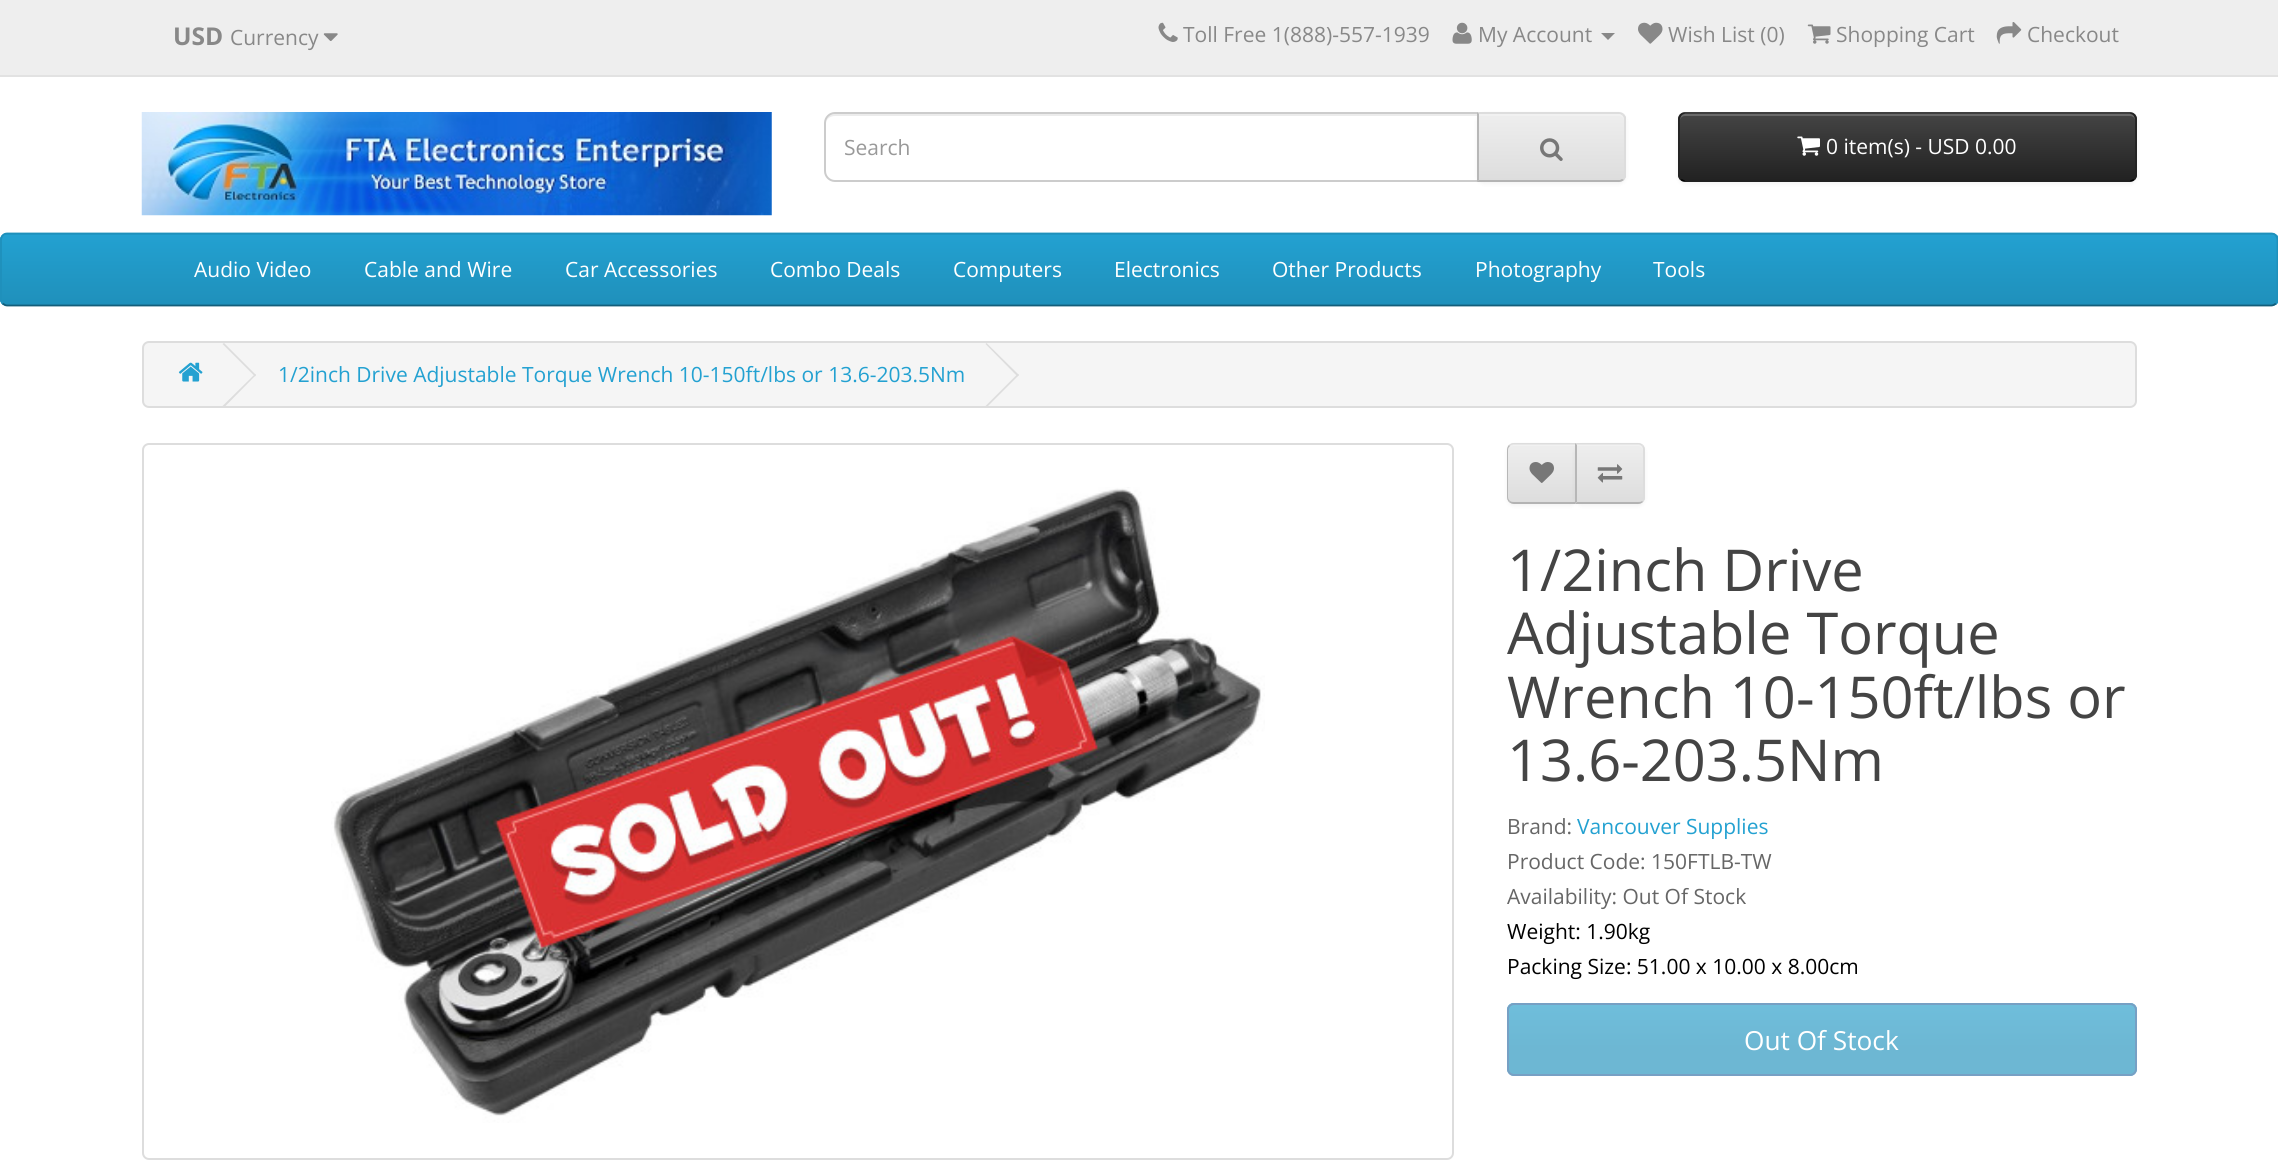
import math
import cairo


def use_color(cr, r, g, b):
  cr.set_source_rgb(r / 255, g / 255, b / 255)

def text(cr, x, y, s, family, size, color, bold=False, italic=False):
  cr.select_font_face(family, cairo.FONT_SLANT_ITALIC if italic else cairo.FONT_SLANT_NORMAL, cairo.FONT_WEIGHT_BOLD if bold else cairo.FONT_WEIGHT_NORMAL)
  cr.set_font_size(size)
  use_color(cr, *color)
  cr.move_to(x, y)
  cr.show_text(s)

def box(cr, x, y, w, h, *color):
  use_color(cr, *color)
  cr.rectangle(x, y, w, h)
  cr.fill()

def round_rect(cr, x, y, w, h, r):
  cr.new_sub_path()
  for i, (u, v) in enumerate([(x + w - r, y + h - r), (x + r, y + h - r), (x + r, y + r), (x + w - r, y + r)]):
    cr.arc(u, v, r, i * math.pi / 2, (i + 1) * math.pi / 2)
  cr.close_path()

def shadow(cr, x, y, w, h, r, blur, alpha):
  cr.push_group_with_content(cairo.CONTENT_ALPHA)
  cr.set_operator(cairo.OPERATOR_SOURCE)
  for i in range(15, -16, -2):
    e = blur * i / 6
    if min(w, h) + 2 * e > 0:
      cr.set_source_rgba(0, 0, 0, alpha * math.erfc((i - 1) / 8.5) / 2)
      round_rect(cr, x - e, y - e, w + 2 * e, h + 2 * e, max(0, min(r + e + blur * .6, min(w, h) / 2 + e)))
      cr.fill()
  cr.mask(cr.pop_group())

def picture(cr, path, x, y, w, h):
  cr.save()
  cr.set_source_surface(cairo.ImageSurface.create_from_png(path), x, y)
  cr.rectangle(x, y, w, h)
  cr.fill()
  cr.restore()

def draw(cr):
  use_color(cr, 255, 255, 255)
  cr.paint()
  box(cr, 0, 0, 2278, 75, 238, 238, 238)
  box(cr, 0, 75, 2278, 2, 226, 226, 226)
  picture(cr, "img_01.png", 323, 33, 15, 8)
  picture(cr, "img_02.png", 1158, 22, 20, 20)
  picture(cr, "img_03.png", 1452, 22, 20, 22)
  use_color(cr, 136, 136, 136)
  cr.new_path()
  cr.move_to(1601, 33)
  cr.line_to(1615, 33)
  cr.line_to(1608, 40)
  cr.close_path()
  cr.fill()
  picture(cr, "img_04.png", 1638, 22, 25, 22)
  picture(cr, "img_05.png", 1807, 24, 24, 20)
  picture(cr, "img_06.png", 1996, 22, 26, 22)
  picture(cr, "img_07.png", 141, 112, 631, 104)
  use_color(cr, 236, 236, 236)
  cr.new_path()
  cr.move_to(835, 116)
  cr.line_to(1477, 116)
  cr.line_to(1477, 114)
  cr.line_to(835, 114)
  cr.curve_to(829, 114, 826, 119, 826, 124)
  cr.curve_to(826, 119, 830, 116, 835, 116)
  cr.close_path()
  cr.fill()
  cr.new_path()
  cr.move_to(835, 113)
  cr.line_to(1478, 113)
  cr.line_to(1478, 181)
  cr.line_to(835, 181)
  cr.curve_to(829.5, 181, 825, 176.5, 825, 171)
  cr.line_to(825, 123)
  cr.curve_to(825, 117.5, 829.5, 113, 835, 113)
  cr.close_path()
  use_color(cr, 204, 204, 204)
  cr.stroke()
  use_color(cr, 0, 0, 0)
  shadow(cr, 1477, 114, 149, 70, 7, 2, 0.05)
  cr.save()
  cr.new_path()
  cr.move_to(1477, 112)
  cr.line_to(1619, 112)
  cr.curve_to(1623, 112, 1626, 115, 1626, 119)
  cr.line_to(1626, 175)
  cr.curve_to(1626, 179, 1623, 182, 1619, 182)
  cr.line_to(1477, 182)
  cr.close_path()
  cr.clip()
  gradient = cairo.LinearGradient(1551, 114, 1551, 180)
  gradient.add_color_stop_rgba(0, 0.933, 0.933, 0.933, 1)
  gradient.add_color_stop_rgba(1, 0.867, 0.867, 0.867, 1)
  cr.set_source(gradient)
  cr.rectangle(1479, 114, 147, 66)
  cr.fill()
  cr.restore()
  use_color(cr, 241, 241, 241)
  cr.new_path()
  cr.move_to(1479, 116)
  cr.line_to(1619, 116)
  cr.curve_to(1622, 116, 1624, 118, 1624, 121)
  cr.line_to(1624, 119)
  cr.curve_to(1624, 116, 1622, 114, 1619, 114)
  cr.line_to(1479, 114)
  cr.close_path()
  cr.fill()
  use_color(cr, 221, 221, 221)
  cr.new_path()
  cr.move_to(1477, 112)
  cr.line_to(1479, 114)
  cr.line_to(1620, 114)
  cr.line_to(1622, 115)
  cr.line_to(1624, 114)
  cr.curve_to(1623, 113, 1621, 112, 1619, 112)
  cr.close_path()
  cr.fill()
  cr.new_path()
  cr.move_to(1626, 177)
  cr.line_to(1624, 180)
  cr.line_to(1622, 179)
  cr.curve_to(1623, 178, 1624, 177, 1624, 175)
  cr.line_to(1624, 119)
  cr.curve_to(1624, 117, 1623, 116, 1622, 115)
  cr.line_to(1624, 114)
  cr.line_to(1626, 117)
  cr.close_path()
  cr.fill()
  use_color(cr, 179, 179, 179)
  cr.new_path()
  cr.move_to(1619, 182)
  cr.curve_to(1621, 182, 1623, 181, 1624, 180)
  cr.line_to(1622, 179)
  cr.line_to(1620, 180)
  cr.line_to(1479, 180)
  cr.line_to(1477, 182)
  cr.close_path()
  cr.fill()
  use_color(cr, 183, 183, 183)
  cr.new_path()
  cr.move_to(1477, 112)
  cr.line_to(1477, 182)
  cr.line_to(1479, 180)
  cr.line_to(1479, 114)
  cr.close_path()
  cr.fill()
  picture(cr, "img_08.png", 1540, 138, 23, 23)
  use_color(cr, 0, 0, 0)
  shadow(cr, 1678, 114, 459, 70, 7, 2, 0.05)
  cr.save()
  round_rect(cr, 1678, 112, 459, 70, 7)
  cr.clip()
  gradient = cairo.LinearGradient(1908, 114, 1908, 180)
  gradient.add_color_stop_rgba(0, 0.267, 0.267, 0.267, 1)
  gradient.add_color_stop_rgba(1, 0.133, 0.133, 0.133, 1)
  cr.set_source(gradient)
  cr.rectangle(1678, 114, 459, 66)
  cr.fill()
  cr.restore()
  use_color(cr, 105, 105, 105)
  cr.new_path()
  cr.move_to(1685, 116)
  cr.line_to(2130, 116)
  cr.curve_to(2133, 116, 2135, 118, 2135, 121)
  cr.curve_to(2135, 118, 2134, 114, 2130, 114)
  cr.line_to(1685, 114)
  cr.curve_to(1681, 114, 1680, 118, 1680, 121)
  cr.curve_to(1680, 118, 1682, 116, 1685, 116)
  cr.close_path()
  cr.fill()
  cr.new_path()
  cr.move_to(2134, 179.5)
  cr.curve_to(2133, 180.5, 2131.5, 181, 2130, 181)
  cr.line_to(1685, 181)
  cr.curve_to(1683.5, 181, 1682, 180.5, 1681, 179.5)
  use_color(cr, 0, 0, 0)
  cr.set_line_width(1.8)
  cr.stroke()
  cr.new_path()
  cr.move_to(1681, 179.5)
  cr.curve_to(1680, 178, 1679, 176.5, 1679, 175)
  cr.line_to(1679, 119)
  cr.curve_to(1679, 117.5, 1680, 116, 1681, 114.5)
  cr.curve_to(1682, 113.5, 1683.5, 113, 1685, 113)
  cr.line_to(2130, 113)
  cr.curve_to(2131.5, 113, 2133, 113.5, 2134, 114.5)
  cr.curve_to(2135, 116, 2136, 117.5, 2136, 119)
  cr.line_to(2136, 175)
  cr.curve_to(2136, 176.5, 2135, 178, 2134, 179.5)
  use_color(cr, 34, 34, 34)
  cr.stroke()
  picture(cr, "img_09.png", 1797, 136, 23, 20)
  use_color(cr, 34, 154, 200)
  round_rect(cr, 0, 233, 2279, 73, 7)
  cr.fill()
  cr.save()
  round_rect(cr, 0, 233, 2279, 73, 7)
  cr.clip()
  gradient = cairo.LinearGradient(1139, 234, 1139, 305)
  gradient.add_color_stop_rgba(0, 0.137, 0.631, 0.82, 1)
  gradient.add_color_stop_rgba(1, 0.122, 0.565, 0.733, 1)
  cr.set_source(gradient)
  cr.rectangle(0, 235, 2278, 70)
  cr.fill()
  cr.restore()
  cr.new_path()
  cr.move_to(2276, 303.5)
  cr.curve_to(2274.5, 304.5, 2273, 305.5, 2271.5, 305.5)
  cr.line_to(7, 305.5)
  cr.curve_to(5.5, 305.5, 4, 304.5, 2.5, 303.5)
  use_color(cr, 20, 94, 122)
  cr.stroke()
  cr.new_path()
  cr.move_to(2.5, 303.5)
  cr.line_to(1, 300.5)
  cr.line_to(1, 239)
  cr.line_to(2, 236.5)
  cr.curve_to(3, 234.5, 5, 233.5, 7, 233.5)
  cr.line_to(2271.5, 233.5)
  cr.curve_to(2273.5, 233.5, 2275.5, 234.5, 2276.5, 236.5)
  cr.line_to(2277.5, 239)
  cr.line_to(2277.5, 300.5)
  cr.line_to(2276, 303.5)
  use_color(cr, 31, 144, 187)
  cr.stroke()
  use_color(cr, 245, 245, 245)
  round_rect(cr, 143, 342, 1993, 65, 6)
  cr.fill_preserve()
  use_color(cr, 221, 221, 221)
  cr.set_line_width(2)
  cr.stroke()
  picture(cr, "img_10.png", 178, 362, 25, 20)
  cr.new_path()
  cr.move_to(222.5, 344)
  cr.line_to(224, 343)
  cr.line_to(256, 375)
  cr.line_to(255, 376.5)
  cr.close_path()
  cr.fill()
  cr.new_path()
  cr.move_to(222.5, 406)
  cr.line_to(255, 374)
  cr.line_to(256, 375)
  cr.line_to(224, 407.5)
  cr.close_path()
  cr.fill()
  cr.new_path()
  cr.move_to(985.5, 344)
  cr.line_to(986.5, 343)
  cr.line_to(1019, 375)
  cr.line_to(1017.5, 376.5)
  cr.close_path()
  cr.fill()
  cr.new_path()
  cr.move_to(985.5, 406)
  cr.line_to(1017.5, 374)
  cr.line_to(1019, 375)
  cr.line_to(986.5, 407.5)
  cr.close_path()
  cr.fill()
  round_rect(cr, 143, 444, 1310, 715, 6)
  cr.stroke()
  picture(cr, "img_11.png", 331, 487, 934, 636)
  use_color(cr, 0, 0, 0)
  shadow(cr, 1507, 445, 70, 61, 7, 2, 0.05)
  use_color(cr, 231, 231, 231)
  cr.new_path()
  cr.move_to(1514, 443)
  cr.line_to(1577, 443)
  cr.line_to(1577, 504)
  cr.line_to(1514, 504)
  cr.curve_to(1510, 504, 1507, 501, 1507, 497)
  cr.line_to(1507, 450)
  cr.curve_to(1507, 446, 1510, 443, 1514, 443)
  cr.close_path()
  cr.fill()
  cr.save()
  cr.new_path()
  cr.move_to(1514, 443)
  cr.line_to(1577, 443)
  cr.line_to(1577, 504)
  cr.line_to(1514, 504)
  cr.curve_to(1510, 504, 1507, 501, 1507, 497)
  cr.line_to(1507, 450)
  cr.curve_to(1507, 446, 1510, 443, 1514, 443)
  cr.close_path()
  cr.clip()
  gradient = cairo.LinearGradient(1542, 445, 1542, 502)
  gradient.add_color_stop_rgba(0, 0.933, 0.933, 0.933, 1)
  gradient.add_color_stop_rgba(1, 0.867, 0.867, 0.867, 1)
  cr.set_source(gradient)
  cr.rectangle(1507, 445, 68, 57)
  cr.fill()
  cr.restore()
  use_color(cr, 241, 241, 241)
  cr.new_path()
  cr.move_to(1514, 446)
  cr.line_to(1575, 446)
  cr.line_to(1575, 445)
  cr.line_to(1514, 445)
  cr.curve_to(1512, 445, 1510, 447, 1509, 449)
  cr.curve_to(1510, 447, 1512, 446, 1514, 446)
  cr.close_path()
  cr.fill()
  use_color(cr, 221, 221, 221)
  cr.new_path()
  cr.move_to(1514, 443)
  cr.curve_to(1512, 443, 1510, 444, 1509, 445)
  cr.line_to(1510, 446)
  cr.curve_to(1511, 445, 1512, 444, 1514, 444)
  cr.line_to(1575, 444)
  cr.line_to(1576, 443)
  cr.close_path()
  cr.fill()
  use_color(cr, 179, 179, 179)
  cr.new_path()
  cr.move_to(1577, 504)
  cr.line_to(1575, 502)
  cr.line_to(1514, 502)
  cr.curve_to(1513, 502, 1511, 502, 1510, 501)
  cr.line_to(1509, 502)
  cr.curve_to(1510, 503, 1512, 504, 1514, 504)
  cr.close_path()
  cr.fill()
  use_color(cr, 183, 183, 183)
  cr.new_path()
  cr.move_to(1509, 445)
  cr.curve_to(1508, 446, 1507, 448, 1507, 450)
  cr.line_to(1507, 497)
  cr.curve_to(1507, 499, 1508, 501, 1509, 502)
  cr.line_to(1510, 501)
  cr.curve_to(1509, 500, 1508, 499, 1508, 497)
  cr.line_to(1508, 450)
  cr.curve_to(1508, 448, 1509, 447, 1510, 446)
  cr.close_path()
  cr.fill()
  picture(cr, "img_12.png", 1529, 462, 25, 21)
  use_color(cr, 0, 0, 0)
  shadow(cr, 1575, 445, 70, 61, 7, 2, 0.05)
  use_color(cr, 231, 231, 231)
  cr.new_path()
  cr.move_to(1575, 443)
  cr.line_to(1638, 443)
  cr.curve_to(1642, 443, 1645, 446, 1645, 450)
  cr.line_to(1645, 497)
  cr.curve_to(1645, 501, 1642, 504, 1638, 504)
  cr.line_to(1575, 504)
  cr.close_path()
  cr.fill()
  cr.save()
  cr.new_path()
  cr.move_to(1575, 443)
  cr.line_to(1638, 443)
  cr.curve_to(1642, 443, 1645, 446, 1645, 450)
  cr.line_to(1645, 497)
  cr.curve_to(1645, 501, 1642, 504, 1638, 504)
  cr.line_to(1575, 504)
  cr.close_path()
  cr.clip()
  gradient = cairo.LinearGradient(1610, 445, 1610, 502)
  gradient.add_color_stop_rgba(0, 0.933, 0.933, 0.933, 1)
  gradient.add_color_stop_rgba(1, 0.867, 0.867, 0.867, 1)
  cr.set_source(gradient)
  cr.rectangle(1577, 445, 68, 57)
  cr.fill()
  cr.restore()
  use_color(cr, 241, 241, 241)
  cr.new_path()
  cr.move_to(1577, 446)
  cr.line_to(1638, 446)
  cr.curve_to(1641, 446, 1643, 449, 1643, 452)
  cr.line_to(1643, 450)
  cr.curve_to(1643, 447, 1641, 445, 1638, 445)
  cr.line_to(1577, 445)
  cr.close_path()
  cr.fill()
  use_color(cr, 221, 221, 221)
  cr.new_path()
  cr.move_to(1577, 444)
  cr.line_to(1639, 444)
  cr.line_to(1642, 446)
  cr.line_to(1643, 445)
  cr.curve_to(1642, 444, 1640, 443, 1638, 443)
  cr.line_to(1575, 443)
  cr.line_to(1577, 445)
  cr.close_path()
  cr.fill()
  cr.new_path()
  cr.move_to(1643, 445)
  cr.curve_to(1644, 446, 1645, 448, 1645, 450)
  cr.line_to(1645, 497)
  cr.curve_to(1645, 499, 1644, 501, 1643, 502)
  cr.line_to(1642, 501)
  cr.curve_to(1642, 500, 1643, 498, 1643, 497)
  cr.line_to(1643, 450)
  cr.curve_to(1643, 449, 1643, 447, 1642, 446)
  cr.close_path()
  cr.fill()
  use_color(cr, 179, 179, 179)
  cr.new_path()
  cr.move_to(1638, 504)
  cr.curve_to(1640, 504, 1642, 503, 1643, 502)
  cr.line_to(1642, 501)
  cr.curve_to(1641, 502, 1640, 502, 1638, 502)
  cr.line_to(1577, 502)
  cr.line_to(1575, 504)
  cr.close_path()
  cr.fill()
  use_color(cr, 183, 183, 183)
  cr.new_path()
  cr.move_to(1575, 504)
  cr.line_to(1577, 502)
  cr.line_to(1577, 445)
  cr.line_to(1575, 443)
  cr.close_path()
  cr.fill()
  picture(cr, "img_13.png", 1597, 464, 26, 19)
  use_color(cr, 109, 183, 211)
  round_rect(cr, 1507, 1003, 630, 73, 7)
  cr.fill()
  gradient = cairo.LinearGradient(1822, 978, 1822, 1048)
  gradient.add_color_stop_rgba(0, 0.439, 0.761, 0.882, 1)
  gradient.add_color_stop_rgba(1, 0.427, 0.718, 0.827, 1)
  cr.set_source(gradient)
  cr.new_path()
  cr.move_to(1514, 1003)
  cr.line_to(2130, 1003)
  cr.curve_to(2134, 1003, 2137, 1006, 2137, 1010)
  cr.line_to(2137, 1048)
  cr.line_to(1507, 1048)
  cr.line_to(1507, 1010)
  cr.curve_to(1507, 1006, 1510, 1003, 1514, 1003)
  cr.close_path()
  cr.fill()
  round_rect(cr, 1508, 1004, 628, 71, 6)
  use_color(cr, 119, 160, 196)
  cr.stroke()
  text(cr, 173, 45, "USD", "Open Sans", 24.5, (136, 136, 136), bold=True)
  text(cr, 230, 45, "Currency", "Open Sans", 21, (136, 136, 136))
  text(cr, 1183, 42, "Toll Free 1(888)-557-1939", "Open Sans", 21, (136, 136, 136))
  text(cr, 1478, 42, "My Account", "Open Sans", 21, (136, 136, 136))
  text(cr, 1668, 42, "Wish List (0)", "Open Sans", 21, (136, 136, 136))
  text(cr, 1836, 42, "Shopping Cart", "Open Sans", 21, (136, 136, 136))
  text(cr, 2027, 42, "Checkout", "Open Sans", 21, (136, 136, 136))
  text(cr, 844, 155, "Search", "Open Sans", 21, (153, 153, 153))
  text(cr, 1826, 154, "0 item(s) - USD 0.00", "Open Sans", 21, (255, 255, 255))
  text(cr, 194, 277, "Audio Video", "Open Sans", 21, (255, 255, 255))
  text(cr, 364, 277, "Cable and Wire", "Open Sans", 21, (255, 255, 255))
  text(cr, 565, 277, "Car Accessories", "Open Sans", 21, (255, 255, 255))
  text(cr, 770, 277, "Combo Deals", "Open Sans", 21, (255, 255, 255))
  text(cr, 953, 277, "Computers", "Open Sans", 21, (255, 255, 255))
  text(cr, 1114, 277, "Electronics", "Open Sans", 21, (255, 255, 255))
  text(cr, 1272, 277, "Other Products", "Open Sans", 21, (255, 255, 255))
  text(cr, 1475, 277, "Photography", "Open Sans", 21, (255, 255, 255))
  text(cr, 1653, 277, "Tools", "Open Sans", 21, (255, 255, 255))
  text(cr, 278, 382, "1/2inch Drive Adjustable Torque Wrench 10-150ft/lbs or 13.6-203.5Nm", "Open Sans", 21, (35, 161, 209))
  text(cr, 1507, 591, "1/2inch Drive", "Open Sans", 57.75, (68, 68, 68))
  text(cr, 1507, 654, "Adjustable Torque", "Open Sans", 57.75, (68, 68, 68))
  text(cr, 1507, 718, "Wrench 10-150ft/lbs or", "Open Sans", 57.75, (68, 68, 68))
  text(cr, 1507, 781, "13.6-203.5Nm", "Open Sans", 57.75, (68, 68, 68))
  text(cr, 1507, 834, "Brand:", "Open Sans", 21, (102, 102, 102))
  text(cr, 1577, 834, "Vancouver Supplies", "Open Sans", 21, (35, 161, 209))
  text(cr, 1507, 869, "Product Code: 150FTLB-TW", "Open Sans", 21, (102, 102, 102))
  text(cr, 1507, 904, "Availability: Out Of Stock", "Open Sans", 21, (102, 102, 102))
  text(cr, 1507, 939, "Weight: 1.90kg", "Open Sans", 21, (0, 0, 0))
  text(cr, 1507, 974, "Packing Size: 51.00 x 10.00 x 8.00cm", "Open Sans", 21, (0, 0, 0))
  text(cr, 1744, 1050, "Out Of Stock", "Open Sans", 26.25, (255, 255, 255))


surface = cairo.ImageSurface(cairo.FORMAT_RGB24, 2278, 1170)
cr = cairo.Context(surface)
options = cairo.FontOptions()
options.set_hint_metrics(cairo.HINT_METRICS_OFF)
options.set_hint_style(cairo.HINT_STYLE_NONE)
cr.set_font_options(options)
cr.set_miter_limit(4)
draw(cr)
surface.write_to_png("out.png")
